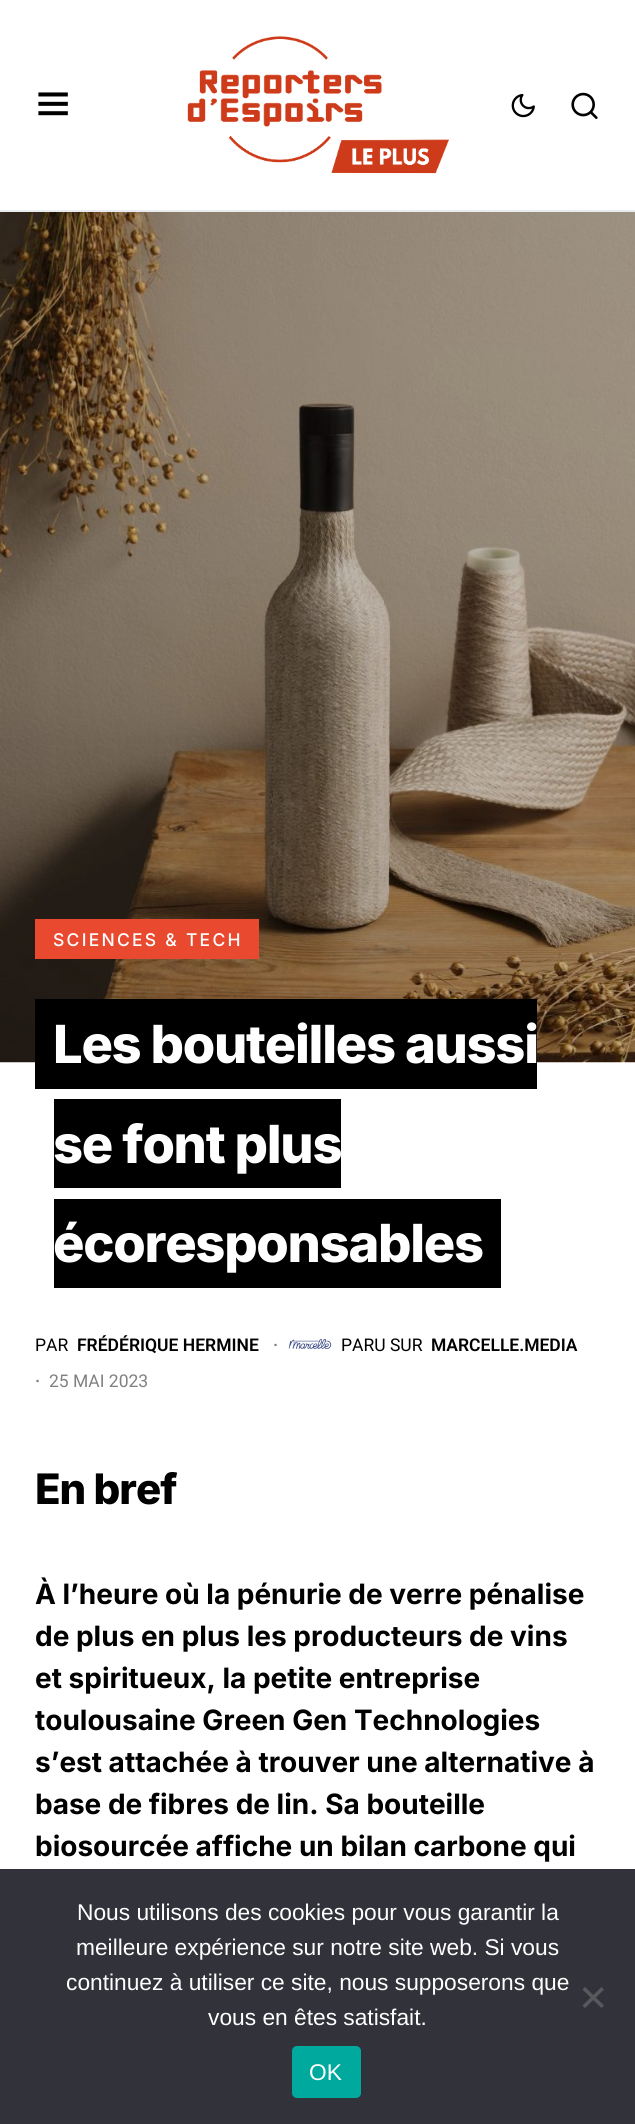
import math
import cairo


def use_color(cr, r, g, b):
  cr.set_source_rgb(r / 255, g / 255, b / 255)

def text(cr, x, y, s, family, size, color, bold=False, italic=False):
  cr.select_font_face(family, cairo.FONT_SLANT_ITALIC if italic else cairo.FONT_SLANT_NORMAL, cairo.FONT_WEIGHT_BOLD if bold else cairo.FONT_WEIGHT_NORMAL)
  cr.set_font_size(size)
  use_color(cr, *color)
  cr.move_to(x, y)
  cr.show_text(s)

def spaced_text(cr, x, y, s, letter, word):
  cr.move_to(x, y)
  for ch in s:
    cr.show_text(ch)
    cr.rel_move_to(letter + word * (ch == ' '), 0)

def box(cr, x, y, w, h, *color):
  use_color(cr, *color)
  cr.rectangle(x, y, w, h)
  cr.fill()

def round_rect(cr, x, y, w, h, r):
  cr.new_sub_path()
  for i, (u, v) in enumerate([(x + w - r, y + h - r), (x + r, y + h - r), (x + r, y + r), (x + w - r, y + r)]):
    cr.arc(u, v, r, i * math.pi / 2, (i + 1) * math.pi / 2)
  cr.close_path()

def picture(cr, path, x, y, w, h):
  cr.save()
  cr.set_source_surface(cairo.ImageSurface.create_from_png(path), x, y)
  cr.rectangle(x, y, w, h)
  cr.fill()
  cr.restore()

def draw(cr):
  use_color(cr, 255, 255, 255)
  cr.paint()
  box(cr, 0, 210, 635, 2, 233, 236, 239)
  picture(cr, "img_01.png", 38, 92, 30, 24)
  picture(cr, "img_02.png", 187, 36, 262, 138)
  picture(cr, "img_03.png", 511, 93, 24, 25)
  picture(cr, "img_04.png", 571, 92, 27, 27)
  picture(cr, "img_05.png", 0, 212, 635, 851)
  box(cr, 35, 919, 224, 40, 233, 73, 46)
  box(cr, 35, 999, 502, 90, 0, 0, 0)
  box(cr, 54, 1099, 287, 89, 0, 0, 0)
  box(cr, 54, 1199, 447, 89, 0, 0, 0)
  picture(cr, "img_06.png", 288, 1338, 44, 12)
  box(cr, 0, 1869, 635, 255, 50, 50, 58)
  use_color(cr, 89, 89, 93)
  cr.new_path()
  cr.move_to(601.5, 1987)
  cr.line_to(604, 1989.5)
  cr.line_to(585, 2008)
  cr.line_to(582.5, 2005.5)
  cr.close_path()
  cr.fill()
  cr.new_path()
  cr.move_to(582.5, 1989.5)
  cr.line_to(585, 1987)
  cr.line_to(604, 2005.5)
  cr.line_to(601.5, 2008)
  cr.close_path()
  cr.fill()
  use_color(cr, 0, 169, 157)
  round_rect(cr, 292, 2046, 69, 52, 5)
  cr.fill()
  cr.select_font_face("Inter Medium")
  cr.set_font_size(17.5)
  use_color(cr, 255, 255, 255)
  spaced_text(cr, 53, 946, "SCIENCES & TECH", 2.25, 0)
  cr.select_font_face("Inter ExtraBold")
  cr.set_font_size(52.5)
  spaced_text(cr, 53, 1063, "Les bouteilles aussi", -1.3, 0)
  spaced_text(cr, 53, 1163, "se font plus", -1.3, 0)
  spaced_text(cr, 53, 1262, "écoresponsables", -1.3, 0)
  text(cr, 35, 1351, "PAR", "Roboto", 17.5, (0, 0, 0))
  text(cr, 77, 1351, "FRÉDÉRIQUE HERMINE", "Roboto SemiBold", 17.5, (0, 0, 0))
  text(cr, 273, 1351, "·", "Roboto SemiBold", 17.5, (129, 129, 129))
  text(cr, 341, 1351, "PARU SUR", "Roboto", 17.5, (0, 0, 0))
  text(cr, 431, 1351, "MARCELLE.MEDIA", "Roboto SemiBold", 17.5, (0, 0, 0))
  text(cr, 35, 1387, "·", "Roboto SemiBold", 17.5, (129, 129, 129))
  text(cr, 49, 1387, "25 MAI 2023", "Roboto", 17.5, (129, 129, 129))
  cr.select_font_face("Inter ExtraBold")
  cr.set_font_size(42)
  use_color(cr, 0, 0, 0)
  spaced_text(cr, 35, 1504, "En bref", -1, 0)
  text(cr, 35, 1604, "À l’heure où la pénurie de verre pénalise", "Inter", 28, (0, 0, 0), bold=True)
  text(cr, 35, 1646, "de plus en plus les producteurs de vins", "Inter", 28, (0, 0, 0), bold=True)
  text(cr, 35, 1688, "et spiritueux, la petite entreprise", "Inter", 28, (0, 0, 0), bold=True)
  text(cr, 35, 1730, "toulousaine Green Gen Technologies", "Inter", 28, (0, 0, 0), bold=True)
  text(cr, 35, 1772, "s’est attachée à trouver une alternative à", "Inter", 28, (0, 0, 0), bold=True)
  text(cr, 35, 1814, "base de fibres de lin. Sa bouteille", "Inter", 28, (0, 0, 0), bold=True)
  text(cr, 35, 1856, "biosourcée affiche un bilan carbone qui", "Inter", 28, (0, 0, 0), bold=True)
  text(cr, 77, 1920, "Nous utilisons des cookies pour vous garantir la", "Liberation Sans", 22.75, (255, 255, 255))
  text(cr, 76, 1955, "meilleure expérience sur notre site web. Si vous", "Liberation Sans", 22.75, (255, 255, 255))
  text(cr, 66, 1990, "continuez à utiliser ce site, nous supposerons que", "Liberation Sans", 22.75, (255, 255, 255))
  text(cr, 208, 2025, "vous en êtes satisfait.", "Liberation Sans", 22.75, (255, 255, 255))
  text(cr, 309, 2080, "OK", "Liberation Sans", 22.75, (255, 255, 255))


surface = cairo.ImageSurface(cairo.FORMAT_RGB24, 635, 2124)
cr = cairo.Context(surface)
options = cairo.FontOptions()
options.set_hint_metrics(cairo.HINT_METRICS_OFF)
options.set_hint_style(cairo.HINT_STYLE_NONE)
cr.set_font_options(options)
cr.set_miter_limit(4)
draw(cr)
surface.write_to_png("out.png")
